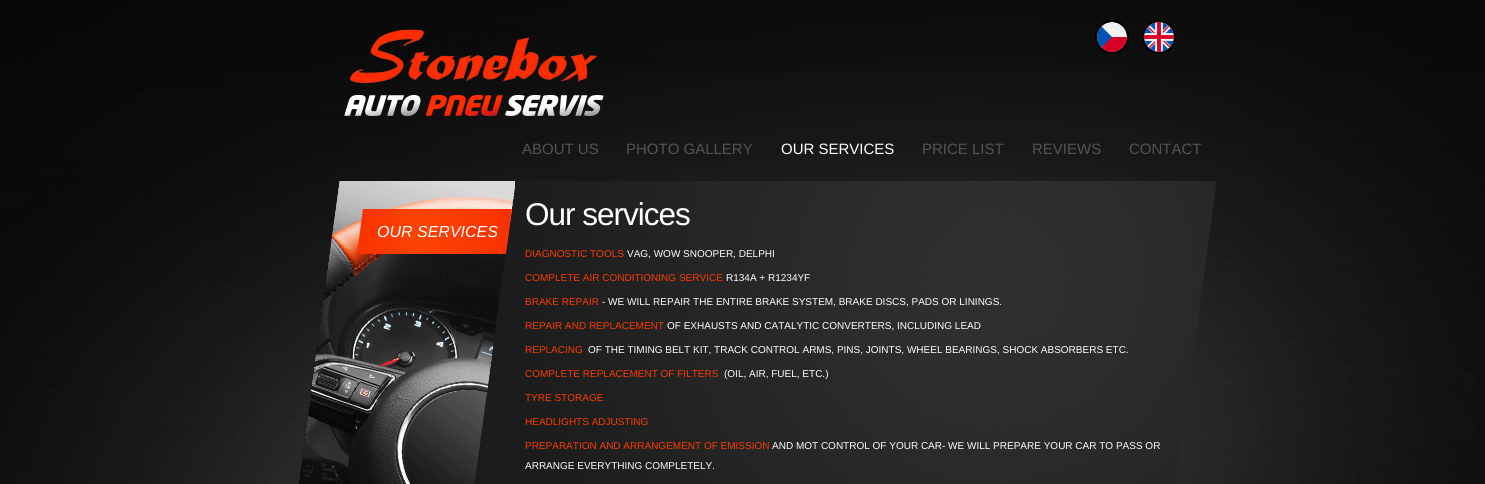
import math
import cairo


def use_color(cr, r, g, b):
  cr.set_source_rgb(r / 255, g / 255, b / 255)

def text(cr, x, y, s, family, size, color, bold=False, italic=False):
  cr.select_font_face(family, cairo.FONT_SLANT_ITALIC if italic else cairo.FONT_SLANT_NORMAL, cairo.FONT_WEIGHT_BOLD if bold else cairo.FONT_WEIGHT_NORMAL)
  cr.set_font_size(size)
  use_color(cr, *color)
  cr.move_to(x, y)
  cr.show_text(s)

def spaced_text(cr, x, y, s, letter, word):
  cr.move_to(x, y)
  for ch in s:
    cr.show_text(ch)
    cr.rel_move_to(letter + word * (ch == ' '), 0)

def picture(cr, path, x, y, w, h):
  cr.save()
  cr.set_source_surface(cairo.ImageSurface.create_from_png(path), x, y)
  cr.rectangle(x, y, w, h)
  cr.fill()
  cr.restore()

def draw(cr):
  use_color(cr, 255, 255, 255)
  cr.paint()
  picture(cr, "img_01.png", 0, 0, 1485, 484)
  picture(cr, "img_02.png", 344, 29, 260, 87)
  cr.arc(1112, 37, 16, 0, 2 * math.pi)
  use_color(cr, 0, 0, 0)
  cr.stroke()
  picture(cr, "img_03.png", 1097, 22, 30, 30)
  cr.arc(1159, 37, 16, 0, 2 * math.pi)
  cr.stroke()
  picture(cr, "img_04.png", 1144, 22, 30, 30)
  picture(cr, "img_05.png", 474, 181, 742, 303)
  picture(cr, "img_06.png", 298, 181, 217, 303)
  picture(cr, "img_07.png", 357, 209, 155, 45)
  text(cr, 522, 154, "ABOUT US", "Liberation Sans", 15, (84, 83, 83))
  text(cr, 626, 154, "PHOTO GALLERY", "Liberation Sans", 15, (84, 83, 83))
  text(cr, 781, 154, "OUR SERVICES", "Liberation Sans", 15, (255, 255, 255))
  text(cr, 922, 154, "PRICE LIST", "Liberation Sans", 15, (84, 83, 83))
  text(cr, 1032, 154, "REVIEWS", "Liberation Sans", 15, (84, 83, 83))
  text(cr, 1129, 154, "CONTACT", "Liberation Sans", 15, (84, 83, 83))
  text(cr, 377, 237, "OUR SERVICES", "Liberation Sans", 16, (255, 255, 255), italic=True)
  cr.select_font_face("Liberation Sans")
  cr.set_font_size(31.5)
  spaced_text(cr, 525, 225, "Our services", -1, 0)
  text(cr, 525, 257, "DIAGNOSTIC TOOLS", "Liberation Sans", 10, (250, 59, 3))
  text(cr, 627, 257, "VAG, WOW SNOOPER, DELPHI", "Liberation Sans", 10, (255, 255, 255))
  text(cr, 525, 281, "COMPLETE AIR CONDITIONING SERVICE", "Liberation Sans", 10, (250, 59, 3))
  text(cr, 726, 281, "R134A + R1234YF", "Liberation Sans", 10, (255, 255, 255))
  text(cr, 525, 305, "BRAKE REPAIR", "Liberation Sans", 10, (250, 59, 3))
  text(cr, 602, 305, "- WE WILL REPAIR THE ENTIRE BRAKE SYSTEM, BRAKE DISCS, PADS OR LININGS.", "Liberation Sans", 10, (255, 255, 255))
  text(cr, 525, 329, "REPAIR AND REPLACEMENT", "Liberation Sans", 10, (250, 59, 3))
  text(cr, 667, 329, "OF EXHAUSTS AND CATALYTIC CONVERTERS, INCLUDING LEAD", "Liberation Sans", 10, (255, 255, 255))
  text(cr, 525, 353, "REPLACING", "Liberation Sans", 10, (250, 59, 3))
  text(cr, 588, 353, "OF THE TIMING BELT KIT, TRACK CONTROL ARMS, PINS, JOINTS, WHEEL BEARINGS, SHOCK ABSORBERS ETC.", "Liberation Sans", 10, (255, 255, 255))
  text(cr, 525, 377, "COMPLETE REPLACEMENT OF FILTERS", "Liberation Sans", 10, (250, 59, 3))
  text(cr, 724, 377, "(OIL, AIR, FUEL, ETC.)", "Liberation Sans", 10, (255, 255, 255))
  text(cr, 525, 401, "TYRE STORAGE", "Liberation Sans", 10, (250, 59, 3))
  text(cr, 525, 425, "HEADLIGHTS ADJUSTING", "Liberation Sans", 10, (250, 59, 3))
  text(cr, 525, 449, "PREPARATION AND ARRANGEMENT OF EMISSION", "Liberation Sans", 10, (250, 59, 3))
  text(cr, 772, 449, "AND MOT CONTROL OF YOUR CAR- WE WILL PREPARE YOUR CAR TO PASS OR", "Liberation Sans", 10, (255, 255, 255))
  text(cr, 525, 469, "ARRANGE EVERYTHING COMPLETELY.", "Liberation Sans", 10, (255, 255, 255))


surface = cairo.ImageSurface(cairo.FORMAT_RGB24, 1485, 484)
cr = cairo.Context(surface)
options = cairo.FontOptions()
options.set_hint_metrics(cairo.HINT_METRICS_OFF)
options.set_hint_style(cairo.HINT_STYLE_NONE)
cr.set_font_options(options)
cr.set_miter_limit(4)
draw(cr)
surface.write_to_png("out.png")
